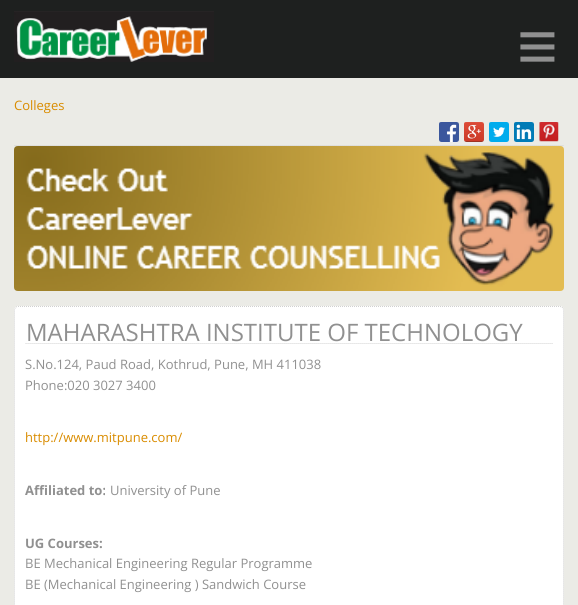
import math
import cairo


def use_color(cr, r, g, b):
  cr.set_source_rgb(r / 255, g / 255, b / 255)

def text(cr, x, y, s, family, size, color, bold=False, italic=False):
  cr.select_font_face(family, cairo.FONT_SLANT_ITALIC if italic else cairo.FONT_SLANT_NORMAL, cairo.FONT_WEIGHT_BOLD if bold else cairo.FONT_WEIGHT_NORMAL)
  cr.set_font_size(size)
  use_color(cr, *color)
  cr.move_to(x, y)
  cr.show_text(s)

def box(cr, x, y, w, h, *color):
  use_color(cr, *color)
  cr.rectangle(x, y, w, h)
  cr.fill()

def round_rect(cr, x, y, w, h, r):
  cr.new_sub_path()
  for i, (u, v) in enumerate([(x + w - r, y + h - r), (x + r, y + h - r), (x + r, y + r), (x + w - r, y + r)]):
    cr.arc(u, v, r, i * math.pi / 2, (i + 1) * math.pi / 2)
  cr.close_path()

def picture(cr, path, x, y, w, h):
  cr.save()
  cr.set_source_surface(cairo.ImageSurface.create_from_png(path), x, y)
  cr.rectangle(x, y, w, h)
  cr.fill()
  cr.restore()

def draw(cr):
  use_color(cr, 235, 235, 230)
  cr.paint()
  box(cr, 0, 0, 578, 78, 30, 32, 31)
  picture(cr, "img_01.png", 14, 11, 200, 51)
  picture(cr, "img_02.png", 14, 145, 550, 1)
  picture(cr, "img_03.png", 439, 122, 20, 20)
  picture(cr, "img_04.png", 464, 122, 20, 20)
  picture(cr, "img_05.png", 489, 122, 20, 20)
  picture(cr, "img_06.png", 514, 122, 20, 20)
  picture(cr, "img_07.png", 539, 122, 20, 20)
  picture(cr, "img_08.png", 14, 146, 550, 145)
  use_color(cr, 255, 255, 255)
  round_rect(cr, 14, 306, 550, 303, 4)
  cr.fill()
  cr.new_path()
  cr.move_to(18, 306.5)
  cr.line_to(560, 306.5)
  cr.curve_to(562, 306.5, 563.5, 308, 563.5, 310)
  cr.line_to(563.5, 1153)
  cr.curve_to(563.5, 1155, 562, 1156.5, 560, 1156.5)
  cr.line_to(18, 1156.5)
  cr.curve_to(16, 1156.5, 14.5, 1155, 14.5, 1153)
  cr.line_to(14.5, 310)
  cr.curve_to(14.5, 308, 16, 306.5, 18, 306.5)
  cr.close_path()
  use_color(cr, 209, 209, 209)
  cr.set_line_width(1)
  cr.set_dash([1, 1])
  cr.stroke()
  picture(cr, "img_09.png", 25, 343, 528, 1)
  text(cr, 517, 70, "≡", "Liberation Sans", 70, (144, 144, 144), bold=True)
  text(cr, 14, 110, "Colleges", "Open Sans", 13, (217, 140, 0))
  text(cr, 26, 341, "MAHARASHTRA INSTITUTE OF TECHNOLOGY", "Open Sans", 24, (144, 144, 144))
  text(cr, 25, 369, "S.No.124, Paud Road, Kothrud, Pune, MH 411038", "Open Sans", 13, (144, 144, 144))
  text(cr, 25, 390, "Phone:020 3027 3400", "Open Sans", 13, (144, 144, 144))
  text(cr, 25, 442, "http://www.mitpune.com/", "Open Sans", 13, (217, 140, 0))
  text(cr, 25, 495, "Affiliated to:", "Open Sans", 13, (144, 144, 144), bold=True)
  text(cr, 110, 495, "University of Pune", "Open Sans", 13, (144, 144, 144))
  text(cr, 25, 548, "UG Courses:", "Open Sans", 13, (144, 144, 144), bold=True)
  text(cr, 25, 568, "BE Mechanical Engineering Regular Programme", "Open Sans", 13, (144, 144, 144))
  text(cr, 25, 589, "BE (Mechanical Engineering ) Sandwich Course", "Open Sans", 13, (144, 144, 144))


surface = cairo.ImageSurface(cairo.FORMAT_RGB24, 578, 605)
cr = cairo.Context(surface)
options = cairo.FontOptions()
options.set_hint_metrics(cairo.HINT_METRICS_OFF)
options.set_hint_style(cairo.HINT_STYLE_NONE)
cr.set_font_options(options)
cr.set_miter_limit(4)
draw(cr)
surface.write_to_png("out.png")
